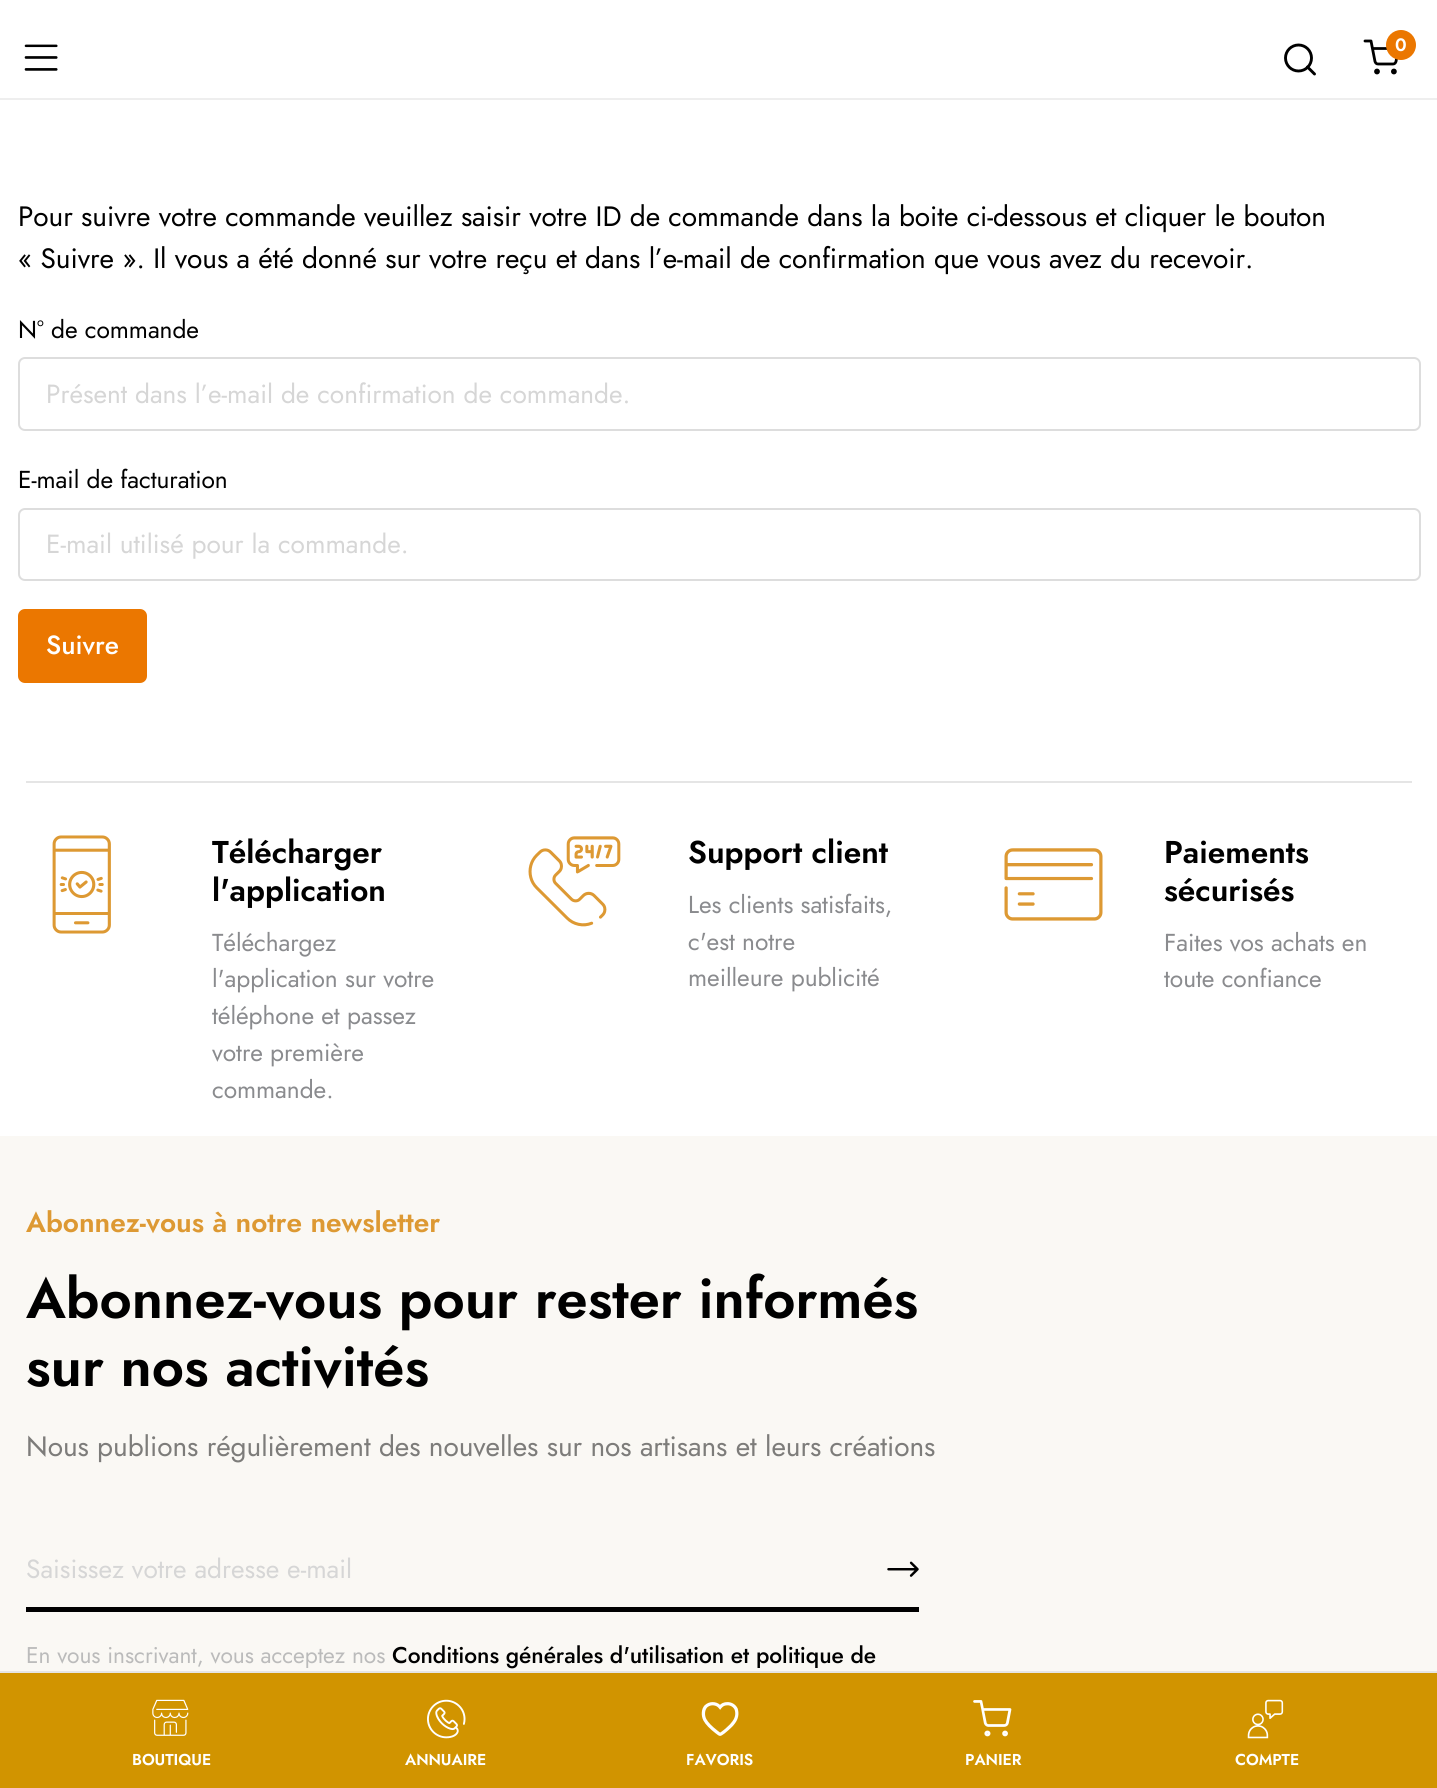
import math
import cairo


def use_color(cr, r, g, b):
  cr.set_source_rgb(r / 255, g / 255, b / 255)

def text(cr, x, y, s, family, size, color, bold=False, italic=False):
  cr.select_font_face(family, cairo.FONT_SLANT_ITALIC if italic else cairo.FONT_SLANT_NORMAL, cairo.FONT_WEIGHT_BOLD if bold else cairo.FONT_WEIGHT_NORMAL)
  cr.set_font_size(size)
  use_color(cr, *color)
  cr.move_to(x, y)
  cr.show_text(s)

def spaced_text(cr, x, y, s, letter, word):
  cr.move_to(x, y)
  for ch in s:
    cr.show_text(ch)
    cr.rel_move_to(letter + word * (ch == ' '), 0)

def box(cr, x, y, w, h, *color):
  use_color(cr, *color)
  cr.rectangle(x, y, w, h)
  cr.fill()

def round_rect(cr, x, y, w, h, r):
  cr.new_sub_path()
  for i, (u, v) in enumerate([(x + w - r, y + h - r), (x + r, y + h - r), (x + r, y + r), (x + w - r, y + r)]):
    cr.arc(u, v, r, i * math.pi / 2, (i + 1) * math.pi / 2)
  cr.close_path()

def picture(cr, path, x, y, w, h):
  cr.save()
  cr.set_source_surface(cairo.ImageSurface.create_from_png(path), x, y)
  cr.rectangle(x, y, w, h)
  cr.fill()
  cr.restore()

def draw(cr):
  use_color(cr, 255, 255, 255)
  cr.paint()
  box(cr, 0, 98, 1437, 2, 238, 238, 238)
  picture(cr, "img_01.png", 24, 44, 34, 27)
  cr.arc(1298.5, 58, 13, 0, 2 * math.pi)
  use_color(cr, 0, 0, 0)
  cr.set_line_width(2.9)
  cr.stroke()
  cr.new_path()
  cr.move_to(1314.5, 74)
  cr.line_to(1307.5, 67)
  cr.set_line_cap(cairo.LINE_CAP_ROUND)
  cr.set_line_join(cairo.LINE_JOIN_ROUND)
  cr.stroke()
  cr.arc(1377, 71.5, 1.5, 0, 2 * math.pi)
  cr.set_line_width(2.8)
  cr.set_line_cap(cairo.LINE_CAP_BUTT)
  cr.set_line_join(cairo.LINE_JOIN_MITER)
  cr.stroke()
  cr.arc(1393.9, 71.5, 1.5, 0, 2 * math.pi)
  cr.stroke()
  cr.new_path()
  cr.move_to(1365, 41)
  cr.line_to(1371, 41)
  cr.line_to(1375, 61.5)
  cr.curve_to(1375.5, 63, 1376.5, 64, 1378, 64)
  cr.line_to(1393, 64)
  cr.curve_to(1394.5, 64, 1395.5, 63, 1396, 61.5)
  cr.line_to(1398.5, 48.5)
  cr.line_to(1372.5, 48.5)
  cr.set_line_cap(cairo.LINE_CAP_ROUND)
  cr.set_line_join(cairo.LINE_JOIN_ROUND)
  cr.stroke()
  use_color(cr, 235, 119, 0)
  cr.arc(1401, 45, 15, 0, 2 * math.pi)
  cr.fill()
  round_rect(cr, 19, 358, 1401, 72, 6)
  use_color(cr, 221, 221, 221)
  cr.set_line_width(2)
  cr.set_line_cap(cairo.LINE_CAP_BUTT)
  cr.set_line_join(cairo.LINE_JOIN_MITER)
  cr.stroke()
  round_rect(cr, 19, 509, 1401, 71, 6)
  cr.stroke()
  use_color(cr, 235, 119, 0)
  round_rect(cr, 19, 610, 127, 72, 6)
  cr.fill_preserve()
  cr.stroke()
  box(cr, 26, 781, 1386, 2, 229, 229, 229)
  picture(cr, "img_02.png", 52, 835, 59, 99)
  picture(cr, "img_03.png", 528, 836, 93, 91)
  picture(cr, "img_04.png", 1004, 848, 99, 73)
  box(cr, 0, 1136, 1437, 535, 250, 248, 244)
  box(cr, 26, 1607, 893, 5, 0, 0, 0)
  picture(cr, "img_05.png", 887, 1561, 32, 16)
  box(cr, 0, 1673, 1437, 115, 209, 148, 0)
  box(cr, 0, 1671, 1437, 2, 229, 229, 229)
  picture(cr, "img_06.png", 152, 1699, 37, 37)
  picture(cr, "img_07.png", 427, 1699, 39, 40)
  picture(cr, "img_08.png", 701, 1702, 38, 34)
  picture(cr, "img_09.png", 973, 1700, 39, 37)
  picture(cr, "img_10.png", 1247, 1699, 37, 40)
  cr.select_font_face("Jost SemiBold")
  cr.set_font_size(18)
  use_color(cr, 255, 255, 255)
  spaced_text(cr, 1395, 51, "0", -0.05, 0)
  cr.select_font_face("Jost")
  cr.set_font_size(28)
  use_color(cr, 0, 0, 0)
  spaced_text(cr, 18, 226, "Pour suivre votre commande veuillez saisir votre ID de commande dans la boite ci-dessous et cliquer le bouton", -0.05, 0)
  spaced_text(cr, 18, 268, "« Suivre ». Il vous a été donné sur votre reçu et dans l’e-mail de confirmation que vous avez du recevoir.", -0.05, 0)
  cr.set_font_size(24.5)
  spaced_text(cr, 18, 338, "N° de commande", -0.05, 0)
  text(cr, 46, 403, "Présent dans l’e-mail de confirmation de commande.", "Jost", 26.25, (214, 214, 214))
  cr.set_font_size(24.5)
  use_color(cr, 0, 0, 0)
  spaced_text(cr, 18, 488, "E-mail de facturation", -0.05, 0)
  text(cr, 46, 553, "E-mail utilisé pour la commande.", "Jost", 26.25, (214, 214, 214))
  text(cr, 46, 654, "Suivre", "Jost Medium", 26.25, (255, 255, 255))
  text(cr, 212, 863, "Télécharger", "Jost SemiBold", 31.5, (0, 0, 0))
  text(cr, 212, 901, "l'application", "Jost SemiBold", 31.5, (0, 0, 0))
  cr.select_font_face("Jost")
  cr.set_font_size(24.5)
  use_color(cr, 138, 139, 142)
  spaced_text(cr, 212, 951, "Téléchargez", -0.05, 0)
  spaced_text(cr, 212, 987, "l'application sur votre", -0.05, 0)
  spaced_text(cr, 212, 1024, "téléphone et passez", -0.05, 0)
  spaced_text(cr, 212, 1061, "votre première", -0.05, 0)
  spaced_text(cr, 212, 1098, "commande.", -0.05, 0)
  text(cr, 688, 863, "Support client", "Jost SemiBold", 31.5, (0, 0, 0))
  cr.select_font_face("Jost")
  cr.set_font_size(24.5)
  use_color(cr, 138, 139, 142)
  spaced_text(cr, 688, 913, "Les clients satisfaits,", -0.05, 0)
  spaced_text(cr, 688, 950, "c'est notre", -0.05, 0)
  spaced_text(cr, 688, 986, "meilleure publicité", -0.05, 0)
  text(cr, 1164, 863, "Paiements", "Jost SemiBold", 31.5, (0, 0, 0))
  text(cr, 1164, 901, "sécurisés", "Jost SemiBold", 31.5, (0, 0, 0))
  cr.select_font_face("Jost")
  cr.set_font_size(24.5)
  use_color(cr, 138, 139, 142)
  spaced_text(cr, 1164, 951, "Faites vos achats en", -0.05, 0)
  spaced_text(cr, 1164, 987, "toute confiance", -0.05, 0)
  text(cr, 26, 1232, "Abonnez-vous à notre newsletter", "Jost SemiBold", 28, (221, 153, 51))
  text(cr, 26, 1318, "Abonnez-vous pour rester informés", "Jost SemiBold", 56, (0, 0, 0))
  text(cr, 26, 1386, "sur nos activités", "Jost SemiBold", 56, (0, 0, 0))
  cr.select_font_face("Jost")
  cr.set_font_size(28)
  use_color(cr, 125, 124, 122)
  spaced_text(cr, 26, 1456, "Nous publions régulièrement des nouvelles sur nos artisans et leurs créations", -0.05, 0)
  text(cr, 26, 1578, "Saisissez votre adresse e-mail", "Jost", 26.25, (214, 214, 214))
  cr.set_font_size(22.75)
  use_color(cr, 187, 187, 187)
  spaced_text(cr, 26, 1663, "En vous inscrivant, vous acceptez nos", -0.05, 0)
  cr.select_font_face("Jost Medium")
  use_color(cr, 0, 0, 0)
  spaced_text(cr, 392, 1663, "Conditions générales d'utilisation et politique de", -0.05, 0)
  cr.select_font_face("Jost SemiBold")
  cr.set_font_size(15.75)
  use_color(cr, 255, 255, 255)
  spaced_text(cr, 132, 1765, "BOUTIQUE", -0.05, 0)
  spaced_text(cr, 405, 1765, "ANNUAIRE", -0.05, 0)
  spaced_text(cr, 686, 1765, "FAVORIS", -0.05, 0)
  spaced_text(cr, 965, 1765, "PANIER", -0.05, 0)
  spaced_text(cr, 1235, 1765, "COMPTE", -0.05, 0)


surface = cairo.ImageSurface(cairo.FORMAT_RGB24, 1437, 1788)
cr = cairo.Context(surface)
options = cairo.FontOptions()
options.set_hint_metrics(cairo.HINT_METRICS_OFF)
options.set_hint_style(cairo.HINT_STYLE_NONE)
cr.set_font_options(options)
cr.set_miter_limit(4)
draw(cr)
surface.write_to_png("out.png")
